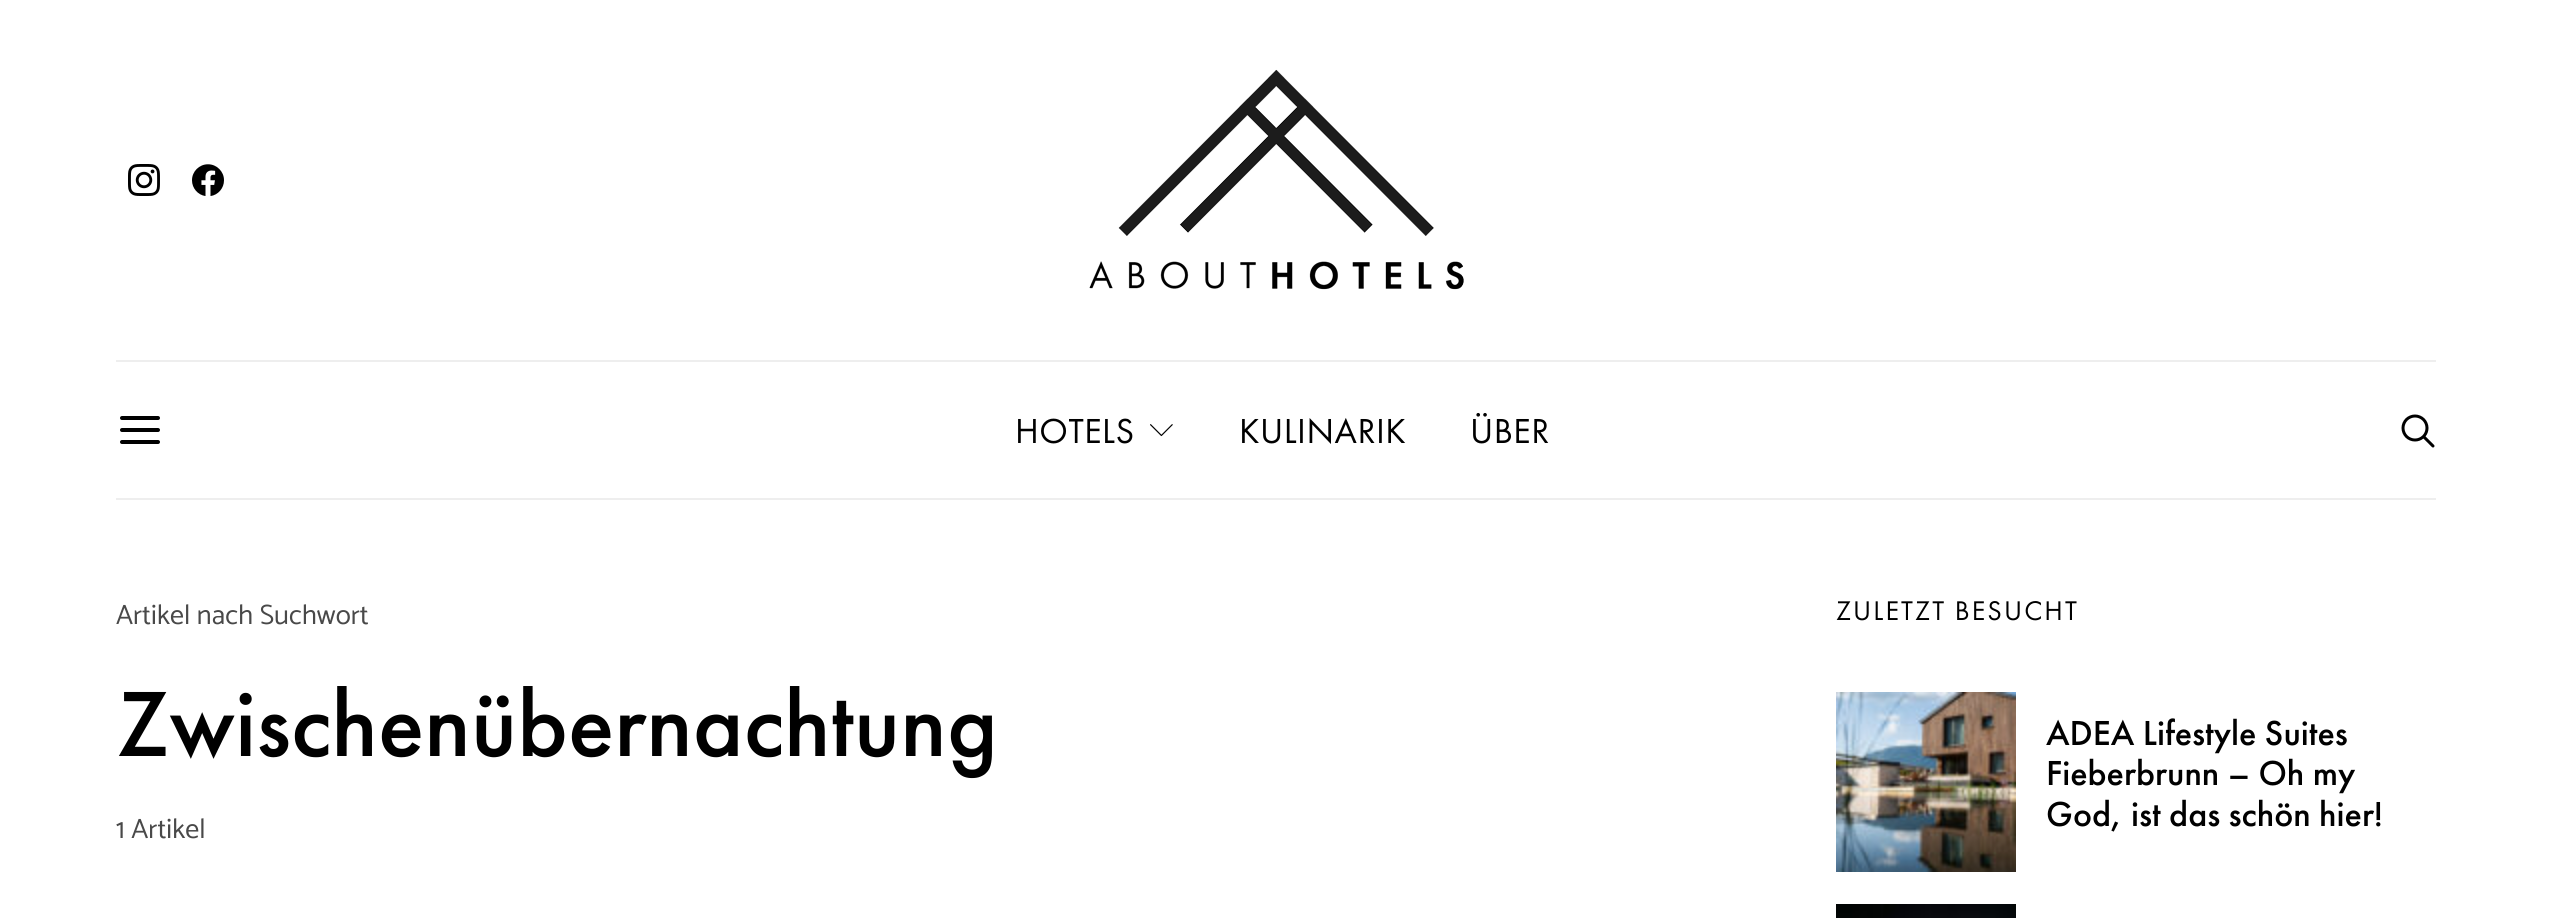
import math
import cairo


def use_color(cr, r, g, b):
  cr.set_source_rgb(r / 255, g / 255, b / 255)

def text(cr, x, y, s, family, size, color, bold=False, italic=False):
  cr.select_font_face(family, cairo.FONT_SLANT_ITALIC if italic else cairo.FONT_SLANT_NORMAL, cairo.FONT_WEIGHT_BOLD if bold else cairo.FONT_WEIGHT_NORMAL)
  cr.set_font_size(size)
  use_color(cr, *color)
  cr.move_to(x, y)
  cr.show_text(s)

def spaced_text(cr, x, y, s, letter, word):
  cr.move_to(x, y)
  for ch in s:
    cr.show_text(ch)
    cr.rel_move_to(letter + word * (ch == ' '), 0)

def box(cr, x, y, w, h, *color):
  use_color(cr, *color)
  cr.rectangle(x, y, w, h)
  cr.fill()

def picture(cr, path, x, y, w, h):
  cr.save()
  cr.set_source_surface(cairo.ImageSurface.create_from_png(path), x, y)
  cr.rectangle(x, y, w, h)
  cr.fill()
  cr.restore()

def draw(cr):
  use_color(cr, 255, 255, 255)
  cr.paint()
  picture(cr, "img_01.png", 128, 164, 32, 32)
  picture(cr, "img_02.png", 192, 164, 32, 32)
  picture(cr, "img_03.png", 1089, 69, 375, 221)
  box(cr, 116, 360, 2320, 2, 238, 238, 238)
  box(cr, 116, 498, 2320, 2, 238, 238, 238)
  picture(cr, "img_04.png", 120, 416, 40, 28)
  picture(cr, "img_05.png", 1150, 424, 23, 13)
  picture(cr, "img_06.png", 2401, 414, 34, 34)
  picture(cr, "img_07.png", 1836, 692, 180, 180)
  picture(cr, "img_08.png", 1836, 904, 180, 14)
  cr.select_font_face("Futura PT")
  cr.set_font_size(36)
  use_color(cr, 0, 0, 0)
  spaced_text(cr, 1015, 443, "HOTELS", 0.5, 0)
  spaced_text(cr, 1239, 443, "KULINARIK", 0.5, 0)
  spaced_text(cr, 1470, 443, "ÜBER", 0.5, 0)
  text(cr, 116, 624, "Artikel nach Suchwort", "Catamaran Thin", 28, (73, 73, 73))
  text(cr, 116, 756, "Zwischenübernachtung", "Futura PT Medium", 96, (0, 0, 0))
  text(cr, 116, 838, "1 Artikel", "Catamaran Thin", 28, (73, 73, 73))
  cr.select_font_face("Futura PT")
  use_color(cr, 0, 0, 0)
  spaced_text(cr, 1836, 620, "ZULETZT BESUCHT", 2.1, 0)
  text(cr, 2046, 745, "ADEA Lifestyle Suites", "Futura PT Medium", 36, (0, 0, 0))
  text(cr, 2046, 785, "Fieberbrunn – Oh my", "Futura PT Medium", 36, (0, 0, 0))
  text(cr, 2046, 826, "God, ist das schön hier!", "Futura PT Medium", 36, (0, 0, 0))


surface = cairo.ImageSurface(cairo.FORMAT_RGB24, 2552, 918)
cr = cairo.Context(surface)
options = cairo.FontOptions()
options.set_hint_metrics(cairo.HINT_METRICS_OFF)
options.set_hint_style(cairo.HINT_STYLE_NONE)
cr.set_font_options(options)
cr.set_miter_limit(4)
draw(cr)
surface.write_to_png("out.png")
